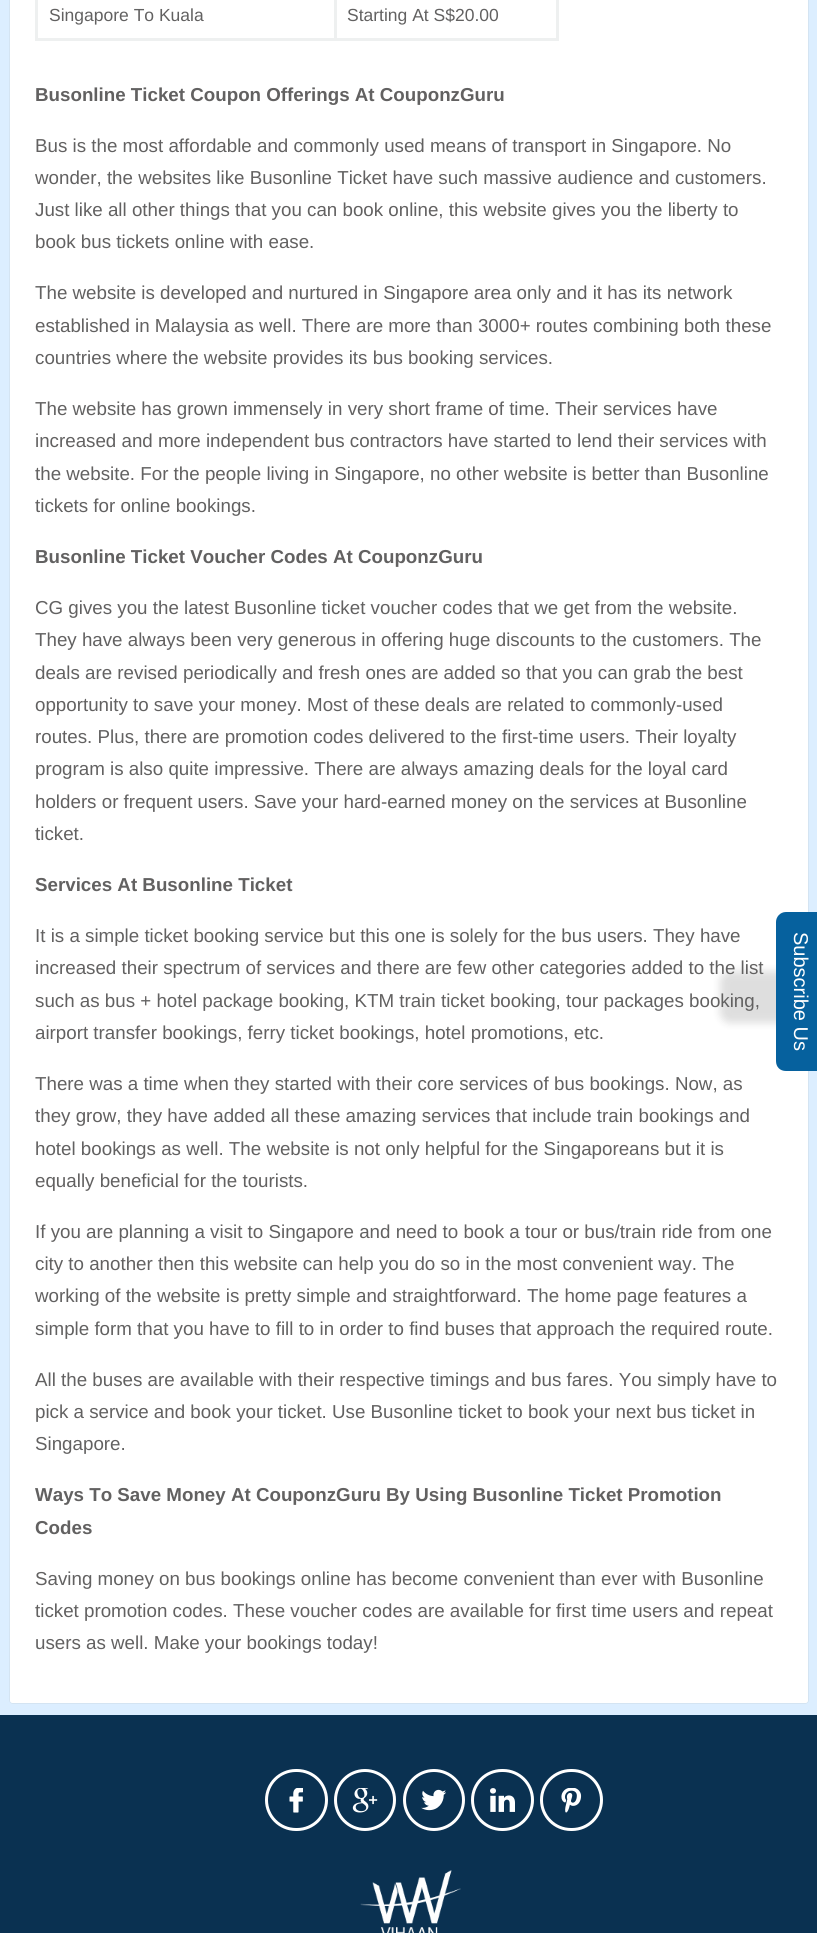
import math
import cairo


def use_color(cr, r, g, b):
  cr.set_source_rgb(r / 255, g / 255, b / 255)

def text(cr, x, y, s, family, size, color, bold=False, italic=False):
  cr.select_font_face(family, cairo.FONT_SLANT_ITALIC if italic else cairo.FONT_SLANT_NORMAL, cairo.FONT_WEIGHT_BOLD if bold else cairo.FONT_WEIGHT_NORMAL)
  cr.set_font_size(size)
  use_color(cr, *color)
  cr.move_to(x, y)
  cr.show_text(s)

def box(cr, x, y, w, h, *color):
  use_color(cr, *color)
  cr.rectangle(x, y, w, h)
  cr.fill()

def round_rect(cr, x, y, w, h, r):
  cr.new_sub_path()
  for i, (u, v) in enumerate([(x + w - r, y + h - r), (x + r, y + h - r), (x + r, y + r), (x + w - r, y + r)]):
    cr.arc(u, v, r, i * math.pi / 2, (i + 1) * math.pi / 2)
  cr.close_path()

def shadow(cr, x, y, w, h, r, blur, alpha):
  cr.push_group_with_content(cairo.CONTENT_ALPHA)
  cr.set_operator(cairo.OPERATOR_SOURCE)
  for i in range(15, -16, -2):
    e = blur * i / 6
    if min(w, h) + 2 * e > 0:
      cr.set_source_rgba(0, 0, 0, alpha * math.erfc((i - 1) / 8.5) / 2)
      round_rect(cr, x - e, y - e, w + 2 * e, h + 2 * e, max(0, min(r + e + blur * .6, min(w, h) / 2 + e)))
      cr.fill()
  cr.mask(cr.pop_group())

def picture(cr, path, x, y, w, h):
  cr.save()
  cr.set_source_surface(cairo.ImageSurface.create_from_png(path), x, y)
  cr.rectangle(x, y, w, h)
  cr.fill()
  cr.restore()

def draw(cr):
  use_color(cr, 220, 238, 255)
  cr.paint()
  round_rect(cr, 9.5, -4.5, 799, 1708, 3.5)
  use_color(cr, 212, 228, 242)
  cr.set_line_width(1)
  cr.stroke()
  use_color(cr, 255, 255, 255)
  round_rect(cr, 10, -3, 798, 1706, 2.5)
  cr.fill()
  box(cr, 556, 0, 3, 40, 238, 240, 240)
  box(cr, 35, 38, 524, 3, 238, 240, 240)
  box(cr, 35, 0, 3, 40, 238, 240, 240)
  box(cr, 334, 0, 3, 40, 238, 240, 240)
  use_color(cr, 0, 0, 0)
  shadow(cr, 720, 971, 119, 52, 10, 4, 0.13)
  use_color(cr, 6, 97, 158)
  cr.new_path()
  cr.move_to(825, 912)
  cr.line_to(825, 1071)
  cr.line_to(786, 1071)
  cr.curve_to(780, 1071, 776, 1067, 776, 1061)
  cr.line_to(776, 922)
  cr.curve_to(776, 917, 780, 912, 786, 912)
  cr.close_path()
  cr.fill()
  box(cr, 0, 1715, 817, 218, 10, 49, 81)
  round_rect(cr, 266.5, 1770.5, 60, 59, 29.5)
  use_color(cr, 255, 255, 255)
  cr.set_line_width(3)
  cr.stroke()
  picture(cr, "img_01.png", 289, 1788, 14, 25)
  cr.arc(365, 1800, 29.5, 0, 2 * math.pi)
  cr.stroke()
  picture(cr, "img_02.png", 352, 1788, 26, 25)
  cr.arc(434, 1800, 29.5, 0, 2 * math.pi)
  cr.stroke()
  picture(cr, "img_03.png", 421, 1789, 25, 22)
  round_rect(cr, 472.5, 1770.5, 60, 59, 29.5)
  cr.stroke()
  picture(cr, "img_04.png", 490, 1788, 25, 24)
  round_rect(cr, 541.5, 1770.5, 60, 59, 29.5)
  cr.stroke()
  picture(cr, "img_05.png", 561, 1788, 21, 25)
  picture(cr, "img_06.png", 360, 1870, 101, 63)
  text(cr, 49, 21, "Singapore To Kuala", "Liberation Sans", 17.5, (98, 97, 97))
  text(cr, 347, 21, "Starting At S$20.00", "Liberation Sans", 17.5, (98, 97, 97))
  text(cr, 35, 101, "Busonline Ticket Coupon Offerings At CouponzGuru", "Liberation Sans", 18.75, (98, 97, 97), bold=True)
  text(cr, 35, 152, "Bus is the most affordable and commonly used means of transport in Singapore. No", "Liberation Sans", 18.75, (98, 97, 97))
  text(cr, 35, 184, "wonder, the websites like Busonline Ticket have such massive audience and customers.", "Liberation Sans", 18.75, (98, 97, 97))
  text(cr, 35, 216, "Just like all other things that you can book online, this website gives you the liberty to", "Liberation Sans", 18.75, (98, 97, 97))
  text(cr, 35, 248, "book bus tickets online with ease.", "Liberation Sans", 18.75, (98, 97, 97))
  text(cr, 35, 299, "The website is developed and nurtured in Singapore area only and it has its network", "Liberation Sans", 18.75, (98, 97, 97))
  text(cr, 35, 332, "established in Malaysia as well. There are more than 3000+ routes combining both these", "Liberation Sans", 18.75, (98, 97, 97))
  text(cr, 35, 364, "countries where the website provides its bus booking services.", "Liberation Sans", 18.75, (98, 97, 97))
  text(cr, 35, 415, "The website has grown immensely in very short frame of time. Their services have", "Liberation Sans", 18.75, (98, 97, 97))
  text(cr, 35, 447, "increased and more independent bus contractors have started to lend their services with", "Liberation Sans", 18.75, (98, 97, 97))
  text(cr, 35, 480, "the website. For the people living in Singapore, no other website is better than Busonline", "Liberation Sans", 18.75, (98, 97, 97))
  text(cr, 35, 512, "tickets for online bookings.", "Liberation Sans", 18.75, (98, 97, 97))
  text(cr, 35, 563, "Busonline Ticket Voucher Codes At CouponzGuru", "Liberation Sans", 18.75, (98, 97, 97), bold=True)
  text(cr, 35, 614, "CG gives you the latest Busonline ticket voucher codes that we get from the website.", "Liberation Sans", 18.75, (98, 97, 97))
  text(cr, 35, 646, "They have always been very generous in offering huge discounts to the customers. The", "Liberation Sans", 18.75, (98, 97, 97))
  text(cr, 35, 679, "deals are revised periodically and fresh ones are added so that you can grab the best", "Liberation Sans", 18.75, (98, 97, 97))
  text(cr, 35, 711, "opportunity to save your money. Most of these deals are related to commonly-used", "Liberation Sans", 18.75, (98, 97, 97))
  text(cr, 35, 743, "routes. Plus, there are promotion codes delivered to the first-time users. Their loyalty", "Liberation Sans", 18.75, (98, 97, 97))
  text(cr, 35, 775, "program is also quite impressive. There are always amazing deals for the loyal card", "Liberation Sans", 18.75, (98, 97, 97))
  text(cr, 35, 808, "holders or frequent users. Save your hard-earned money on the services at Busonline", "Liberation Sans", 18.75, (98, 97, 97))
  text(cr, 35, 840, "ticket.", "Liberation Sans", 18.75, (98, 97, 97))
  text(cr, 35, 891, "Services At Busonline Ticket", "Liberation Sans", 18.75, (98, 97, 97), bold=True)
  text(cr, 35, 942, "It is a simple ticket booking service but this one is solely for the bus users. They have", "Liberation Sans", 18.75, (98, 97, 97))
  text(cr, 35, 974, "increased their spectrum of services and there are few other categories added to the list", "Liberation Sans", 18.75, (98, 97, 97))
  text(cr, 35, 1007, "such as bus + hotel package booking, KTM train ticket booking, tour packages booking,", "Liberation Sans", 18.75, (98, 97, 97))
  text(cr, 35, 1039, "airport transfer bookings, ferry ticket bookings, hotel promotions, etc.", "Liberation Sans", 18.75, (98, 97, 97))
  text(cr, 35, 1090, "There was a time when they started with their core services of bus bookings. Now, as", "Liberation Sans", 18.75, (98, 97, 97))
  text(cr, 35, 1122, "they grow, they have added all these amazing services that include train bookings and", "Liberation Sans", 18.75, (98, 97, 97))
  text(cr, 35, 1155, "hotel bookings as well. The website is not only helpful for the Singaporeans but it is", "Liberation Sans", 18.75, (98, 97, 97))
  text(cr, 35, 1187, "equally beneficial for the tourists.", "Liberation Sans", 18.75, (98, 97, 97))
  text(cr, 35, 1238, "If you are planning a visit to Singapore and need to book a tour or bus/train ride from one", "Liberation Sans", 18.75, (98, 97, 97))
  text(cr, 35, 1270, "city to another then this website can help you do so in the most convenient way. The", "Liberation Sans", 18.75, (98, 97, 97))
  text(cr, 35, 1302, "working of the website is pretty simple and straightforward. The home page features a", "Liberation Sans", 18.75, (98, 97, 97))
  text(cr, 35, 1335, "simple form that you have to fill to in order to find buses that approach the required route.", "Liberation Sans", 18.75, (98, 97, 97))
  text(cr, 35, 1386, "All the buses are available with their respective timings and bus fares. You simply have to", "Liberation Sans", 18.75, (98, 97, 97))
  text(cr, 35, 1418, "pick a service and book your ticket. Use Busonline ticket to book your next bus ticket in", "Liberation Sans", 18.75, (98, 97, 97))
  text(cr, 35, 1450, "Singapore.", "Liberation Sans", 18.75, (98, 97, 97))
  text(cr, 35, 1501, "Ways To Save Money At CouponzGuru By Using Busonline Ticket Promotion", "Liberation Sans", 18.75, (98, 97, 97), bold=True)
  text(cr, 35, 1534, "Codes", "Liberation Sans", 18.75, (98, 97, 97), bold=True)
  text(cr, 35, 1585, "Saving money on bus bookings online has become convenient than ever with Busonline", "Liberation Sans", 18.75, (98, 97, 97))
  text(cr, 35, 1617, "ticket promotion codes. These voucher codes are available for first time users and repeat", "Liberation Sans", 18.75, (98, 97, 97))
  text(cr, 35, 1649, "users as well. Make your bookings today!", "Liberation Sans", 18.75, (98, 97, 97))
  cr.save()
  cr.translate(794, 932)
  cr.rotate(90 * math.pi / 180)
  text(cr, 0, 0, "Subscribe Us", "Liberation Sans", 20, (255, 255, 255))
  cr.restore()


surface = cairo.ImageSurface(cairo.FORMAT_RGB24, 817, 1933)
cr = cairo.Context(surface)
options = cairo.FontOptions()
options.set_hint_metrics(cairo.HINT_METRICS_OFF)
options.set_hint_style(cairo.HINT_STYLE_NONE)
cr.set_font_options(options)
cr.set_miter_limit(4)
draw(cr)
surface.write_to_png("out.png")
